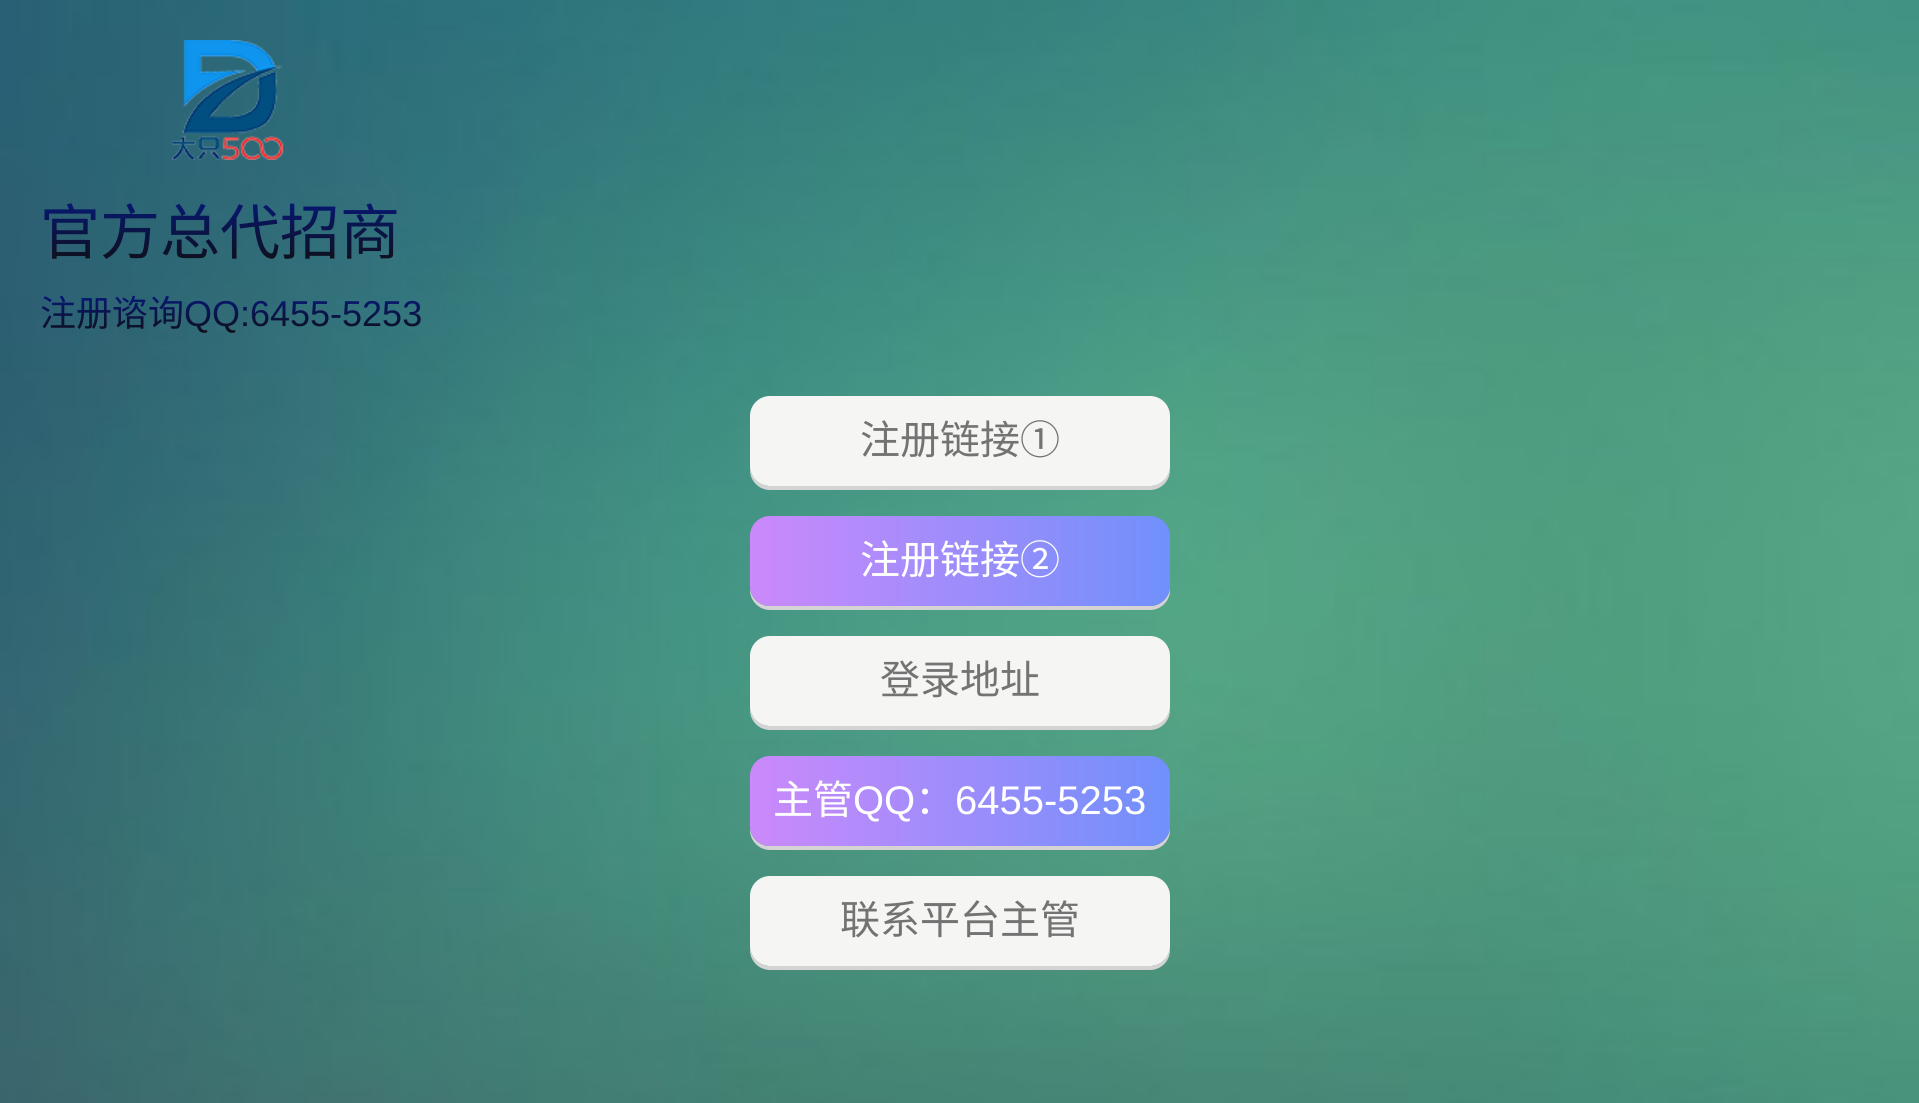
import math
import cairo


def use_color(cr, r, g, b):
  cr.set_source_rgb(r / 255, g / 255, b / 255)

def text(cr, x, y, s, family, size, color, bold=False, italic=False):
  cr.select_font_face(family, cairo.FONT_SLANT_ITALIC if italic else cairo.FONT_SLANT_NORMAL, cairo.FONT_WEIGHT_BOLD if bold else cairo.FONT_WEIGHT_NORMAL)
  cr.set_font_size(size)
  use_color(cr, *color)
  cr.move_to(x, y)
  cr.show_text(s)

def round_rect(cr, x, y, w, h, r):
  cr.new_sub_path()
  for i, (u, v) in enumerate([(x + w - r, y + h - r), (x + r, y + h - r), (x + r, y + r), (x + w - r, y + r)]):
    cr.arc(u, v, r, i * math.pi / 2, (i + 1) * math.pi / 2)
  cr.close_path()

def picture(cr, path, x, y, w, h):
  cr.save()
  cr.set_source_surface(cairo.ImageSurface.create_from_png(path), x, y)
  cr.rectangle(x, y, w, h)
  cr.fill()
  cr.restore()

def draw(cr):
  use_color(cr, 255, 255, 255)
  cr.paint()
  picture(cr, "img_01.png", 0, 0, 1919, 1103)
  picture(cr, "img_02.png", 172, 40, 112, 120)
  use_color(cr, 213, 211, 211)
  cr.new_path()
  cr.move_to(750, 466)
  cr.line_to(750, 470)
  cr.curve_to(750, 481, 759, 490, 770, 490)
  cr.line_to(1150, 490)
  cr.curve_to(1161, 490, 1170, 481, 1170, 470)
  cr.line_to(1170, 466)
  cr.curve_to(1170, 477, 1161, 486, 1150, 486)
  cr.line_to(770, 486)
  cr.curve_to(759, 486, 750, 477, 750, 466)
  cr.close_path()
  cr.fill()
  use_color(cr, 245, 245, 243)
  round_rect(cr, 750, 396, 420, 90, 20)
  cr.fill()
  use_color(cr, 213, 211, 211)
  cr.new_path()
  cr.move_to(750, 586)
  cr.line_to(750, 590)
  cr.curve_to(750, 601, 759, 610, 770, 610)
  cr.line_to(1150, 610)
  cr.curve_to(1161, 610, 1170, 601, 1170, 590)
  cr.line_to(1170, 586)
  cr.curve_to(1170, 597, 1161, 606, 1150, 606)
  cr.line_to(770, 606)
  cr.curve_to(759, 606, 750, 597, 750, 586)
  cr.close_path()
  cr.fill()
  gradient = cairo.LinearGradient(750, 561, 1170, 561)
  gradient.add_color_stop_rgba(0, 0.796, 0.537, 0.984, 1)
  gradient.add_color_stop_rgba(1, 0.439, 0.565, 0.984, 1)
  cr.set_source(gradient)
  round_rect(cr, 750, 516, 420, 90, 20)
  cr.fill()
  use_color(cr, 213, 211, 211)
  cr.new_path()
  cr.move_to(750, 706)
  cr.line_to(750, 710)
  cr.curve_to(750, 721, 759, 730, 770, 730)
  cr.line_to(1150, 730)
  cr.curve_to(1161, 730, 1170, 721, 1170, 710)
  cr.line_to(1170, 706)
  cr.curve_to(1170, 717, 1161, 726, 1150, 726)
  cr.line_to(770, 726)
  cr.curve_to(759, 726, 750, 717, 750, 706)
  cr.close_path()
  cr.fill()
  use_color(cr, 245, 245, 243)
  round_rect(cr, 750, 636, 420, 90, 20)
  cr.fill()
  use_color(cr, 213, 211, 211)
  cr.new_path()
  cr.move_to(750, 826)
  cr.line_to(750, 830)
  cr.curve_to(750, 841, 759, 850, 770, 850)
  cr.line_to(1150, 850)
  cr.curve_to(1161, 850, 1170, 841, 1170, 830)
  cr.line_to(1170, 826)
  cr.curve_to(1170, 837, 1161, 846, 1150, 846)
  cr.line_to(770, 846)
  cr.curve_to(759, 846, 750, 837, 750, 826)
  cr.close_path()
  cr.fill()
  gradient = cairo.LinearGradient(750, 801, 1170, 801)
  gradient.add_color_stop_rgba(0, 0.796, 0.537, 0.984, 1)
  gradient.add_color_stop_rgba(1, 0.439, 0.565, 0.984, 1)
  cr.set_source(gradient)
  round_rect(cr, 750, 756, 420, 90, 20)
  cr.fill()
  use_color(cr, 213, 211, 211)
  cr.new_path()
  cr.move_to(750, 946)
  cr.line_to(750, 950)
  cr.curve_to(750, 961, 759, 970, 770, 970)
  cr.line_to(1150, 970)
  cr.curve_to(1161, 970, 1170, 961, 1170, 950)
  cr.line_to(1170, 946)
  cr.curve_to(1170, 957, 1161, 966, 1150, 966)
  cr.line_to(770, 966)
  cr.curve_to(759, 966, 750, 957, 750, 946)
  cr.close_path()
  cr.fill()
  use_color(cr, 245, 245, 243)
  round_rect(cr, 750, 876, 420, 90, 20)
  cr.fill()
  cr.select_font_face("Noto Sans CJK SC")
  cr.set_font_size(60)
  gradient = cairo.LinearGradient(960, 200, 960, 266)
  gradient.add_color_stop_rgba(0, 0.024, 0.094, 0.459, 1)
  gradient.add_color_stop_rgba(1, 0.059, 0.059, 0.082, 1)
  cr.set_source(gradient)
  cr.move_to(40, 254)
  cr.show_text("官方总代招商")
  cr.set_font_size(36)
  gradient = cairo.LinearGradient(960, 296, 960, 336)
  gradient.add_color_stop_rgba(0, 0.024, 0.094, 0.459, 1)
  gradient.add_color_stop_rgba(1, 0.059, 0.059, 0.082, 1)
  cr.set_source(gradient)
  cr.move_to(40, 326)
  cr.show_text("注册谘询")
  cr.select_font_face("Liberation Sans")
  cr.move_to(184, 326)
  cr.show_text("QQ:6455-5253")
  text(cr, 860, 454, "注册链接①", "Noto Sans CJK SC", 40, (115, 115, 115))
  text(cr, 860, 574, "注册链接②", "Noto Sans CJK SC", 40, (255, 255, 255))
  text(cr, 880, 694, "登录地址", "Noto Sans CJK SC", 40, (115, 115, 115))
  text(cr, 773, 814, "主管", "Noto Sans CJK SC", 40, (255, 255, 255))
  text(cr, 853, 814, "QQ", "Liberation Sans", 40, (255, 255, 255))
  text(cr, 915, 814, "：", "Noto Sans CJK SC", 40, (255, 255, 255))
  text(cr, 955, 814, "6455-5253", "Liberation Sans", 40, (255, 255, 255))
  text(cr, 840, 934, "联系平台主管", "Noto Sans CJK SC", 40, (115, 115, 115))


surface = cairo.ImageSurface(cairo.FORMAT_RGB24, 1919, 1103)
cr = cairo.Context(surface)
options = cairo.FontOptions()
options.set_hint_metrics(cairo.HINT_METRICS_OFF)
options.set_hint_style(cairo.HINT_STYLE_NONE)
cr.set_font_options(options)
cr.set_miter_limit(4)
draw(cr)
surface.write_to_png("out.png")
